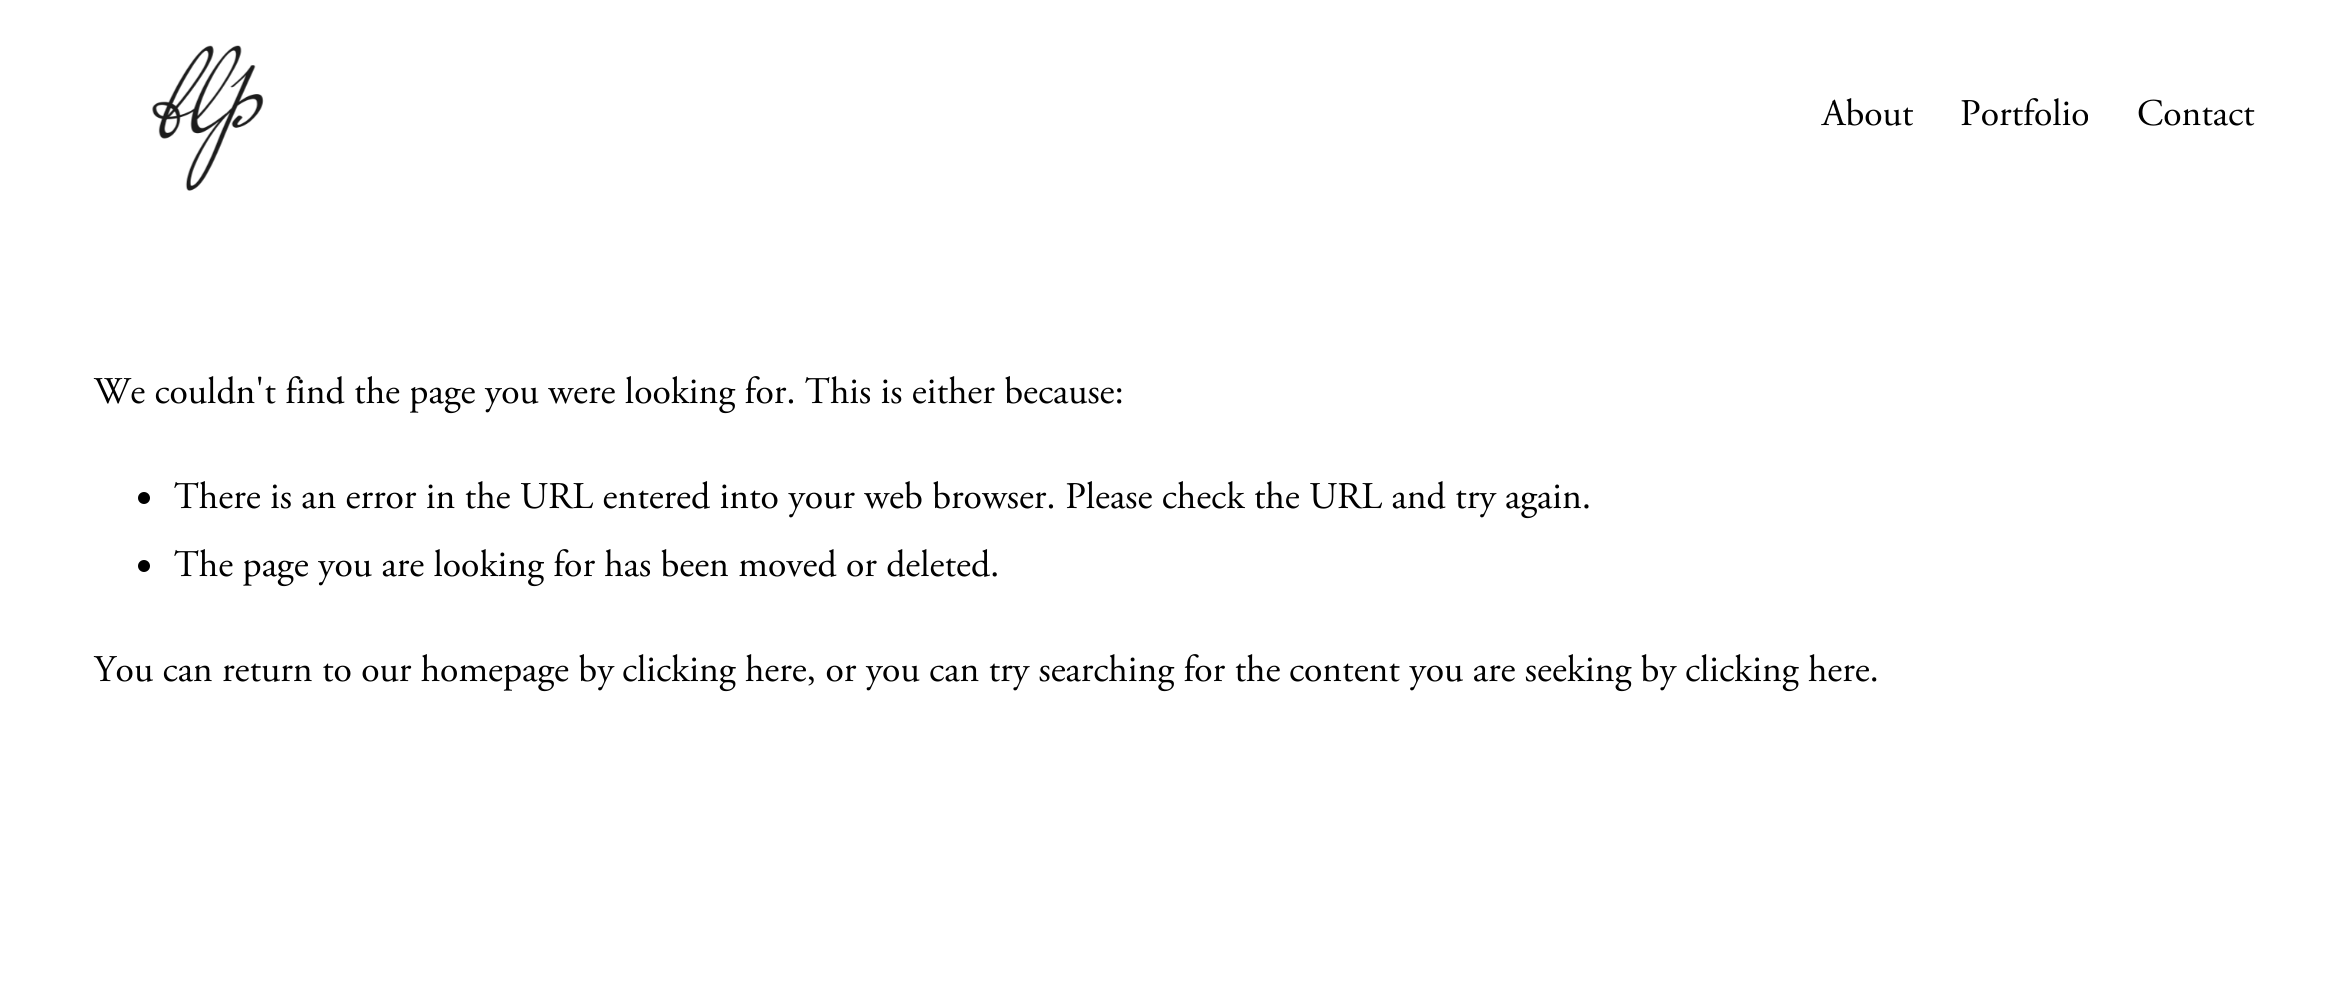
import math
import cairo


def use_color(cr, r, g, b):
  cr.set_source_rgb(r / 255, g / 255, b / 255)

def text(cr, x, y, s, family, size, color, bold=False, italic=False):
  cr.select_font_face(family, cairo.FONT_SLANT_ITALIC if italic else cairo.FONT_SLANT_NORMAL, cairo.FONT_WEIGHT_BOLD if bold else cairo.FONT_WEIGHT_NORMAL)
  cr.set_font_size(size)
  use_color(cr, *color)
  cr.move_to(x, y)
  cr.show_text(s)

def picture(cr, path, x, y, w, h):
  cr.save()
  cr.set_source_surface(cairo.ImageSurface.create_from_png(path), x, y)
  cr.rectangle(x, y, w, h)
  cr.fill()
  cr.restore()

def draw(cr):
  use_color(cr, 255, 255, 255)
  cr.paint()
  picture(cr, "img_01.png", 152, 45, 112, 146)
  use_color(cr, 0, 0, 0)
  cr.arc(144, 498, 6, 0, 2 * math.pi)
  cr.fill()
  cr.arc(144, 566, 6, 0, 2 * math.pi)
  cr.fill()
  text(cr, 1822, 125, "About", "Adobe Garamond", 37.65, (0, 0, 0))
  text(cr, 1960, 125, "Portfolio", "Adobe Garamond", 37.65, (0, 0, 0))
  text(cr, 2137, 125, "Contact", "Adobe Garamond", 37.65, (0, 0, 0))
  text(cr, 94, 403, "We couldn't find the page you were looking for. This is either because:", "Adobe Garamond", 37.65, (0, 0, 0))
  text(cr, 174, 508, "There is an error in the URL entered into your web browser. Please check the URL and try again.", "Adobe Garamond", 37.65, (0, 0, 0))
  text(cr, 174, 576, "The page you are looking for has been moved or deleted.", "Adobe Garamond", 37.65, (0, 0, 0))
  text(cr, 94, 681, "You can return to our homepage by", "Adobe Garamond", 37.65, (0, 0, 0))
  text(cr, 622, 681, "clicking here, or you can try searching for the", "Adobe Garamond", 37.65, (0, 0, 0))
  text(cr, 1289, 681, "content you are seeking by", "Adobe Garamond", 37.65, (0, 0, 0))
  text(cr, 1685, 681, "clicking here.", "Adobe Garamond", 37.65, (0, 0, 0))


surface = cairo.ImageSurface(cairo.FORMAT_RGB24, 2348, 986)
cr = cairo.Context(surface)
options = cairo.FontOptions()
options.set_hint_metrics(cairo.HINT_METRICS_OFF)
options.set_hint_style(cairo.HINT_STYLE_NONE)
cr.set_font_options(options)
cr.set_miter_limit(4)
draw(cr)
surface.write_to_png("out.png")
